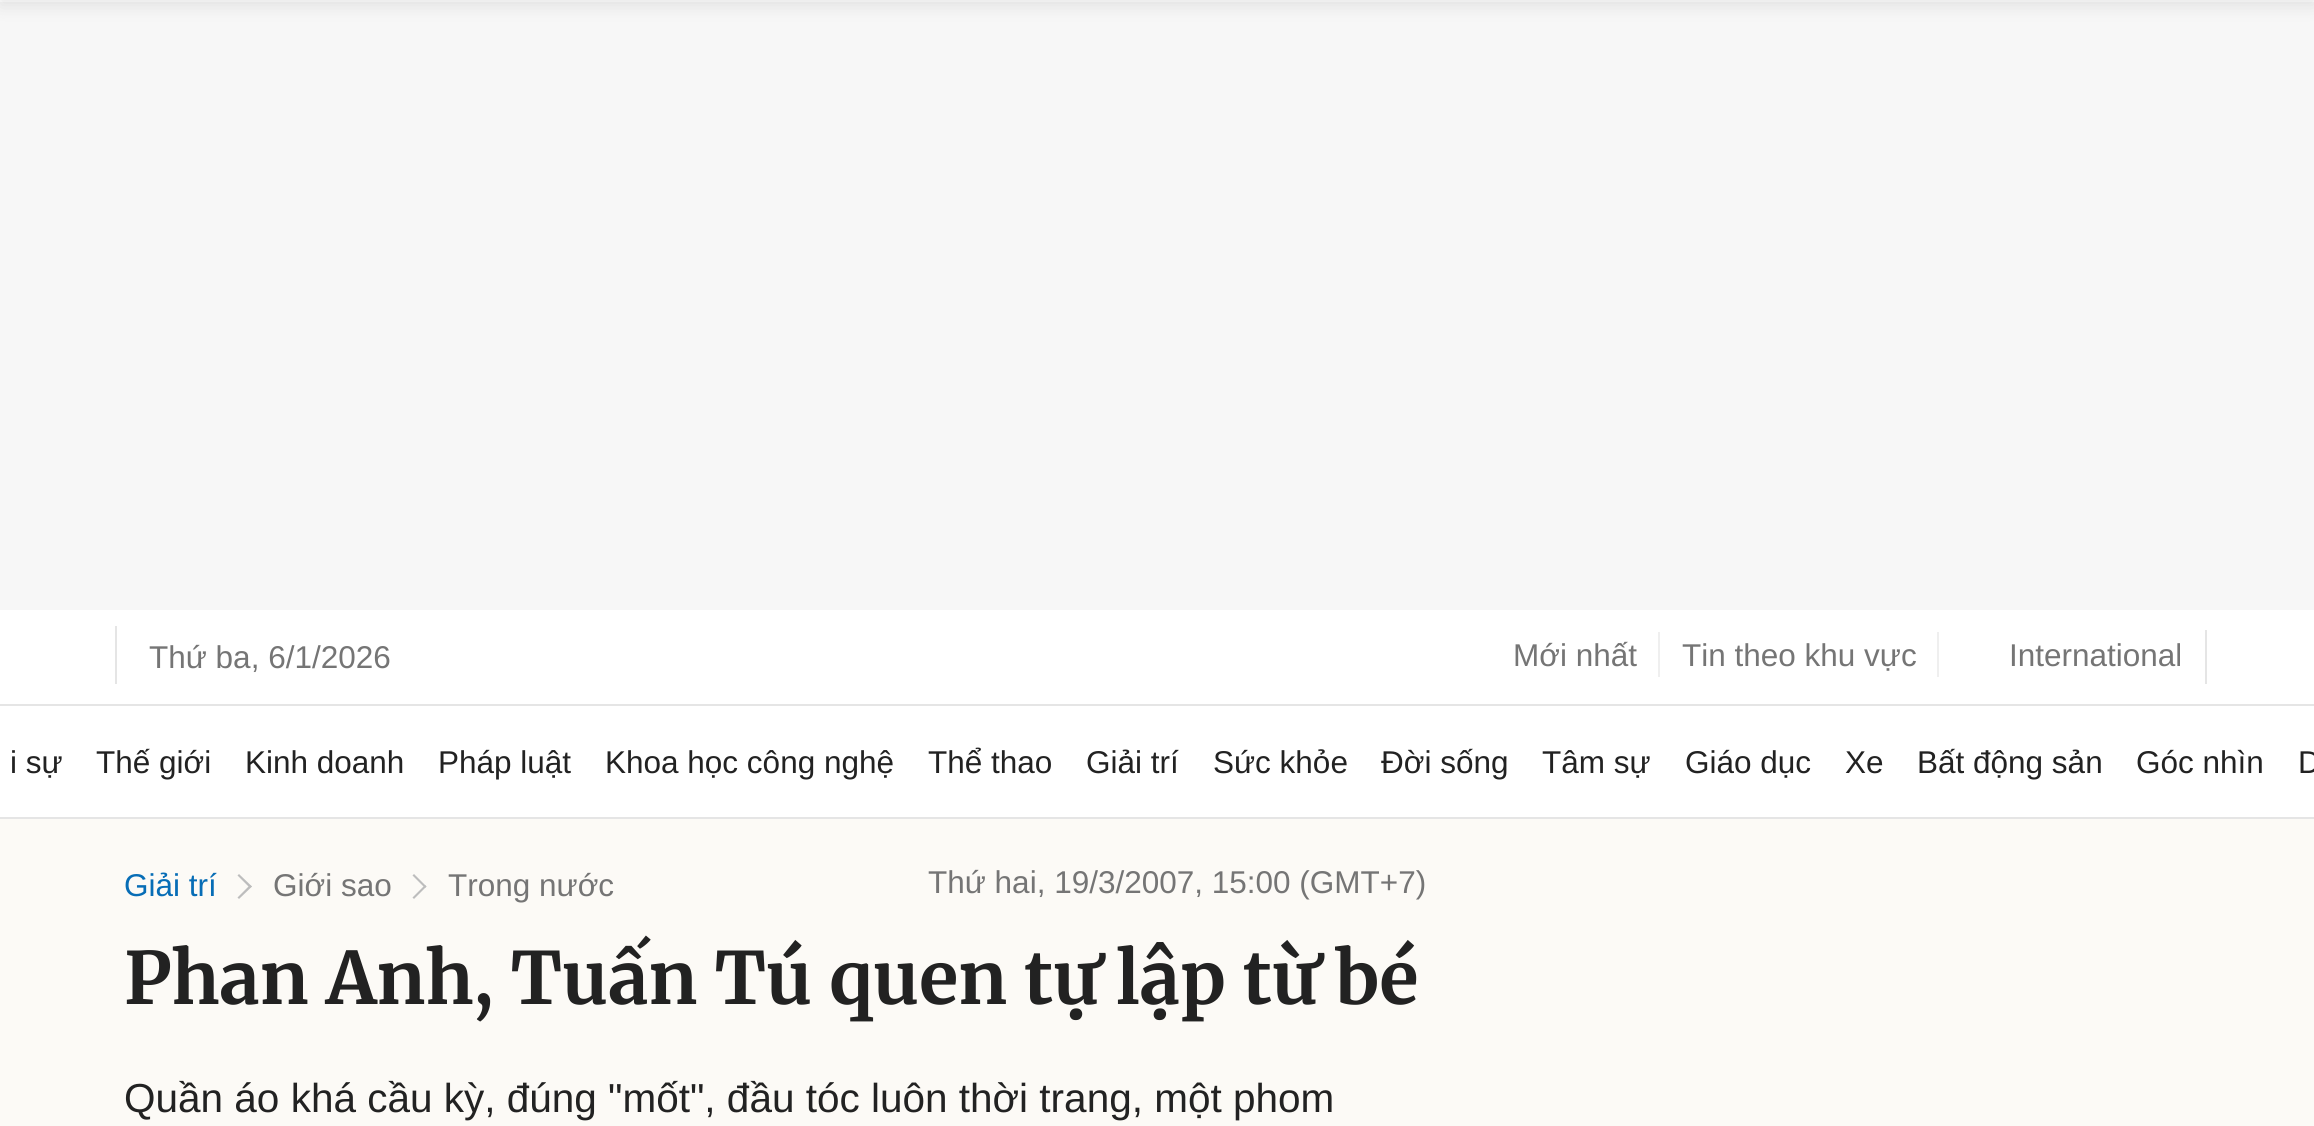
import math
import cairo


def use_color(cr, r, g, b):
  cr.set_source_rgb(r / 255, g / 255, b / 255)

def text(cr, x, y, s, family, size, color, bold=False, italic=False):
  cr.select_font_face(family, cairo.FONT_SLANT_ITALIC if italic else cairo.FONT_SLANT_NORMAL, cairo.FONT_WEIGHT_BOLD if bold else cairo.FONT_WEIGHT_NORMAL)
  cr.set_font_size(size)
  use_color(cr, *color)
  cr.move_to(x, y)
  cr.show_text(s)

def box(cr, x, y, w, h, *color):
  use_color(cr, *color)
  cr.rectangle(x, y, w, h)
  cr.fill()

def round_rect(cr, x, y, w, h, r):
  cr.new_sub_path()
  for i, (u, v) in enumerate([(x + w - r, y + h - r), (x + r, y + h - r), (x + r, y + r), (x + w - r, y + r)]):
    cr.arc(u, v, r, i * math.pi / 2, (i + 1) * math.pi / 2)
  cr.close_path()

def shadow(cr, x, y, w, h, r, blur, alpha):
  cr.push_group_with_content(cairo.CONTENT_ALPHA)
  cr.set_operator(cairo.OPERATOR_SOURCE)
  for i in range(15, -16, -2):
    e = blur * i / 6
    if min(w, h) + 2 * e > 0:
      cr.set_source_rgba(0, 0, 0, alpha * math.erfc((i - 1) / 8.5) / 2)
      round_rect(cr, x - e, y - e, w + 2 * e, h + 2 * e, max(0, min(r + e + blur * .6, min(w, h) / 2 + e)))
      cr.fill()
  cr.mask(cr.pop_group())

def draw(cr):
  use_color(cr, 255, 255, 255)
  cr.paint()
  box(cr, 0, 2, 2314, 608, 247, 247, 247)
  box(cr, 0, 704, 2314, 2, 229, 229, 229)
  box(cr, 115, 626, 2, 58, 229, 229, 229)
  box(cr, 1658, 632, 2, 45, 239, 239, 239)
  box(cr, 1937, 632, 2, 45, 239, 239, 239)
  box(cr, 2205, 630, 2, 54, 229, 229, 229)
  box(cr, 0, 817, 2314, 2, 229, 229, 229)
  box(cr, 0, 819, 2314, 307, 252, 250, 246)
  use_color(cr, 0, 0, 0)
  shadow(cr, 0, -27, 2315, 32, 0, 9, 0.1)
  use_color(cr, 189, 189, 189)
  cr.new_path()
  cr.move_to(239, 874)
  cr.line_to(252, 886.5)
  cr.line_to(250, 888)
  cr.line_to(237.5, 875.5)
  cr.close_path()
  cr.fill()
  cr.new_path()
  cr.move_to(250, 885)
  cr.line_to(252, 886.5)
  cr.line_to(239, 899)
  cr.line_to(237.5, 897.5)
  cr.close_path()
  cr.fill()
  cr.new_path()
  cr.move_to(414, 874)
  cr.line_to(426.5, 886.5)
  cr.line_to(425, 888)
  cr.line_to(412.5, 875.5)
  cr.close_path()
  cr.fill()
  cr.new_path()
  cr.move_to(425, 885)
  cr.line_to(426.5, 886.5)
  cr.line_to(414, 899)
  cr.line_to(412.5, 897.5)
  cr.close_path()
  cr.fill()
  text(cr, 149, 668, "Thứ ba, 6/1/2026", "Liberation Sans", 31.5, (117, 117, 117))
  text(cr, 1513, 666, "Mới nhất", "Liberation Sans", 31.5, (117, 117, 117))
  text(cr, 1682, 666, "Tin theo khu vực", "Liberation Sans", 31.5, (117, 117, 117))
  text(cr, 2009, 666, "International", "Liberation Sans", 31.5, (117, 117, 117))
  text(cr, 10, 773, "i sự", "Liberation Sans", 31.5, (34, 34, 34))
  text(cr, 96, 773, "Thế giới", "Liberation Sans", 31.5, (34, 34, 34))
  text(cr, 245, 773, "Kinh doanh", "Liberation Sans", 31.5, (34, 34, 34))
  text(cr, 438, 773, "Pháp luật", "Liberation Sans", 31.5, (34, 34, 34))
  text(cr, 605, 773, "Khoa học công nghệ", "Liberation Sans", 31.5, (34, 34, 34))
  text(cr, 928, 773, "Thể thao", "Liberation Sans", 31.5, (34, 34, 34))
  text(cr, 1086, 773, "Giải trí", "Liberation Sans", 31.5, (34, 34, 34))
  text(cr, 1213, 773, "Sức khỏe", "Liberation Sans", 31.5, (34, 34, 34))
  text(cr, 1381, 773, "Đời sống", "Liberation Sans", 31.5, (34, 34, 34))
  text(cr, 1542, 773, "Tâm sự", "Liberation Sans", 31.5, (34, 34, 34))
  text(cr, 1685, 773, "Giáo dục", "Liberation Sans", 31.5, (34, 34, 34))
  text(cr, 1845, 773, "Xe", "Liberation Sans", 31.5, (34, 34, 34))
  text(cr, 1917, 773, "Bất động sản", "Liberation Sans", 31.5, (34, 34, 34))
  text(cr, 2136, 773, "Góc nhìn", "Liberation Sans", 31.5, (34, 34, 34))
  text(cr, 2298, 773, "D", "Liberation Sans", 31.5, (34, 34, 34))
  text(cr, 124, 896, "Giải trí", "Liberation Sans", 31.5, (7, 109, 182))
  text(cr, 273, 896, "Giới sao", "Liberation Sans", 31.5, (117, 117, 117))
  text(cr, 448, 896, "Trong nước", "Liberation Sans", 31.5, (117, 117, 117))
  text(cr, 928, 893, "Thứ hai, 19/3/2007, 15:00 (GMT+7)", "Liberation Sans", 31.5, (117, 117, 117))
  text(cr, 124, 1004, "Phan Anh, Tuấn Tú quen tự lập từ bé", "Merriweather", 72, (34, 34, 34), bold=True)
  text(cr, 124, 1112, "Quần áo khá cầu kỳ, đúng \"mốt\", đầu tóc luôn thời trang, một phom", "Liberation Sans", 40.5, (34, 34, 34))


surface = cairo.ImageSurface(cairo.FORMAT_RGB24, 2314, 1126)
cr = cairo.Context(surface)
options = cairo.FontOptions()
options.set_hint_metrics(cairo.HINT_METRICS_OFF)
options.set_hint_style(cairo.HINT_STYLE_NONE)
cr.set_font_options(options)
cr.set_miter_limit(4)
draw(cr)
surface.write_to_png("out.png")
